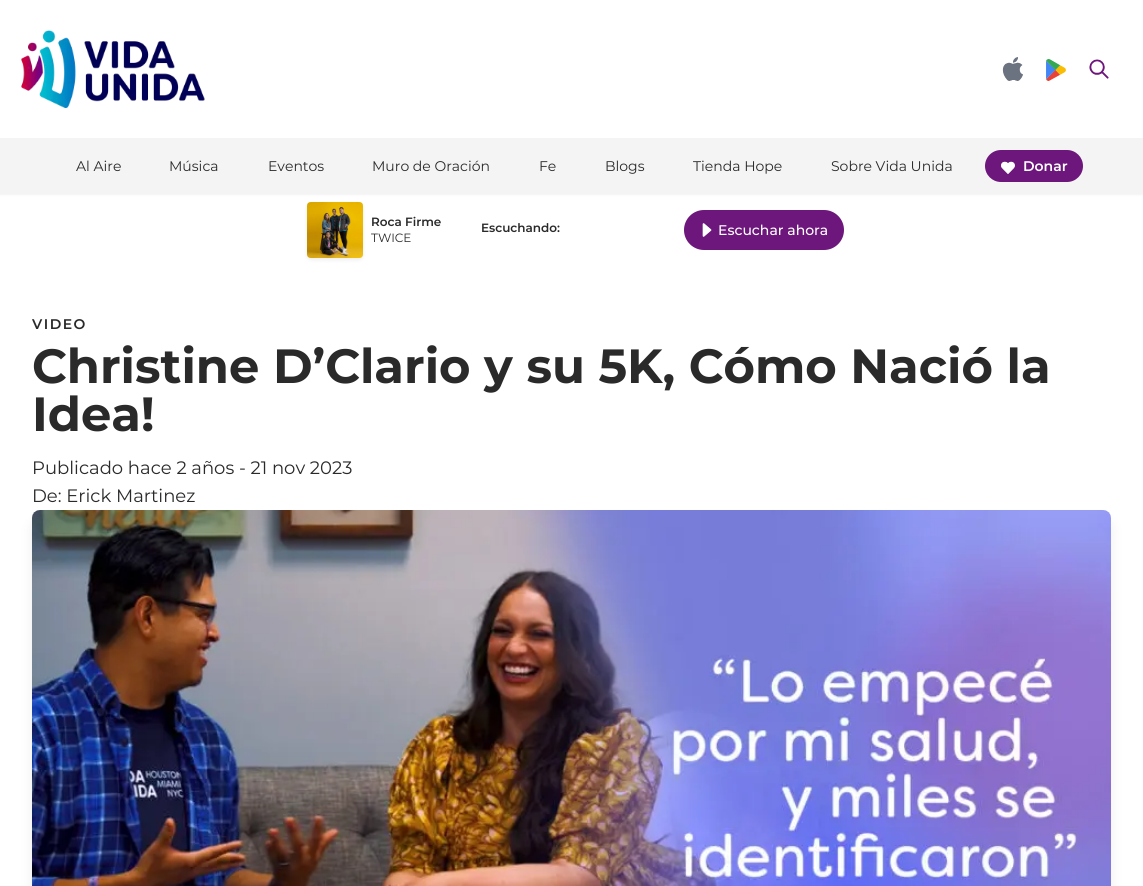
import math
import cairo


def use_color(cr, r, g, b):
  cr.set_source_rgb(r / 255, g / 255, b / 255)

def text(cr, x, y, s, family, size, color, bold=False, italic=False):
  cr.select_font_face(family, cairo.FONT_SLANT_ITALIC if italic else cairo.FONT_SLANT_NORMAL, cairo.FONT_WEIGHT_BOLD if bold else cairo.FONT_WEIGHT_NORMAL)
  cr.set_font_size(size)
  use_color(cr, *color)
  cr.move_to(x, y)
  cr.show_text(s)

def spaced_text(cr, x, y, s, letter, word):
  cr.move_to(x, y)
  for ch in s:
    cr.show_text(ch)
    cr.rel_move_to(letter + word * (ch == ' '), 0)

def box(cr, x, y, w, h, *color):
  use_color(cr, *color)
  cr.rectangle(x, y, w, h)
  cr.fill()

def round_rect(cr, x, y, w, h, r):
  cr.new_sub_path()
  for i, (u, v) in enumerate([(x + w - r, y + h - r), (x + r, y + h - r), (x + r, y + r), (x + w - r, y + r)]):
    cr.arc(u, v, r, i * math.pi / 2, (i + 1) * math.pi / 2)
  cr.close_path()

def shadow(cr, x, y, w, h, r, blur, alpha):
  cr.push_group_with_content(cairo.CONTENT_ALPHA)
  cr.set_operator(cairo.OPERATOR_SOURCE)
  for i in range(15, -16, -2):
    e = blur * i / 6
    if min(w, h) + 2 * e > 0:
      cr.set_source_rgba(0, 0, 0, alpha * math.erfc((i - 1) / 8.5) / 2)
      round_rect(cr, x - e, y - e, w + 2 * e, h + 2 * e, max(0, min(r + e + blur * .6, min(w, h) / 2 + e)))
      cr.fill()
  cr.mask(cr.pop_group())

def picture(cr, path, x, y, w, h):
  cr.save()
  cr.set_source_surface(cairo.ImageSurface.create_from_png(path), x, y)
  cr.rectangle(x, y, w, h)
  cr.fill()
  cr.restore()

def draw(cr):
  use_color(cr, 255, 255, 255)
  cr.paint()
  picture(cr, "img_01.png", 21, 30, 184, 79)
  picture(cr, "img_02.png", 1002, 57, 21, 24)
  picture(cr, "img_03.png", 1046, 59, 20, 22)
  picture(cr, "img_04.png", 1089, 59, 20, 20)
  use_color(cr, 0, 0, 0)
  shadow(cr, 0, 139, 1143, 56, 0, 1, 0.05)
  box(cr, 0, 138, 1143, 56, 244, 244, 244)
  use_color(cr, 109, 22, 123)
  round_rect(cr, 985, 150, 98, 32, 16)
  cr.fill()
  picture(cr, "img_05.png", 1001, 161, 14, 13)
  use_color(cr, 0, 0, 0)
  shadow(cr, 307, 204, 56, 56, 4, 2, 0.07)
  picture(cr, "img_06.png", 307, 202, 56, 56)
  use_color(cr, 109, 22, 123)
  round_rect(cr, 684, 210, 160, 40, 20)
  cr.fill()
  picture(cr, "img_07.png", 702, 223, 10, 14)
  use_color(cr, 0, 0, 0)
  shadow(cr, 35, 523, 1073, 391, 5, 7.5, 0.1)
  picture(cr, "img_08.png", 32, 510, 1079, 376)
  text(cr, 76, 171, "Al Aire", "Montserrat", 14, (42, 42, 42))
  text(cr, 169, 171, "Música", "Montserrat", 14, (42, 42, 42))
  text(cr, 268, 171, "Eventos", "Montserrat", 14, (42, 42, 42))
  text(cr, 372, 171, "Muro de Oración", "Montserrat", 14, (42, 42, 42))
  text(cr, 539, 171, "Fe", "Montserrat", 14, (42, 42, 42))
  text(cr, 605, 171, "Blogs", "Montserrat", 14, (42, 42, 42))
  text(cr, 693, 171, "Tienda Hope", "Montserrat", 14, (42, 42, 42))
  text(cr, 831, 171, "Sobre Vida Unida", "Montserrat", 14, (42, 42, 42))
  text(cr, 1023, 171, "Donar", "Montserrat SemiBold", 14, (255, 255, 255))
  text(cr, 371, 226, "Roca Firme", "Montserrat SemiBold", 12, (42, 42, 42))
  text(cr, 371, 242, "TWICE", "Montserrat", 12, (42, 42, 42))
  text(cr, 481, 232, "Escuchando:", "Montserrat SemiBold", 12, (42, 42, 42))
  text(cr, 718, 235, "Escuchar ahora", "Montserrat Medium", 14, (255, 255, 255))
  cr.select_font_face("Montserrat SemiBold")
  use_color(cr, 42, 42, 42)
  spaced_text(cr, 32, 329, "VIDEO", 1.5, 0)
  text(cr, 32, 383, "Christine D’Clario y su 5K, Cómo Nació la", "Montserrat", 48, (42, 42, 42), bold=True)
  text(cr, 32, 431, "Idea!", "Montserrat", 48, (42, 42, 42), bold=True)
  text(cr, 32, 474, "Publicado hace 2 años - 21 nov 2023", "Montserrat", 18, (42, 42, 42))
  text(cr, 32, 502, "De: Erick Martinez", "Montserrat", 18, (42, 42, 42))


surface = cairo.ImageSurface(cairo.FORMAT_RGB24, 1143, 886)
cr = cairo.Context(surface)
options = cairo.FontOptions()
options.set_hint_metrics(cairo.HINT_METRICS_OFF)
options.set_hint_style(cairo.HINT_STYLE_NONE)
cr.set_font_options(options)
cr.set_miter_limit(4)
draw(cr)
surface.write_to_png("out.png")
